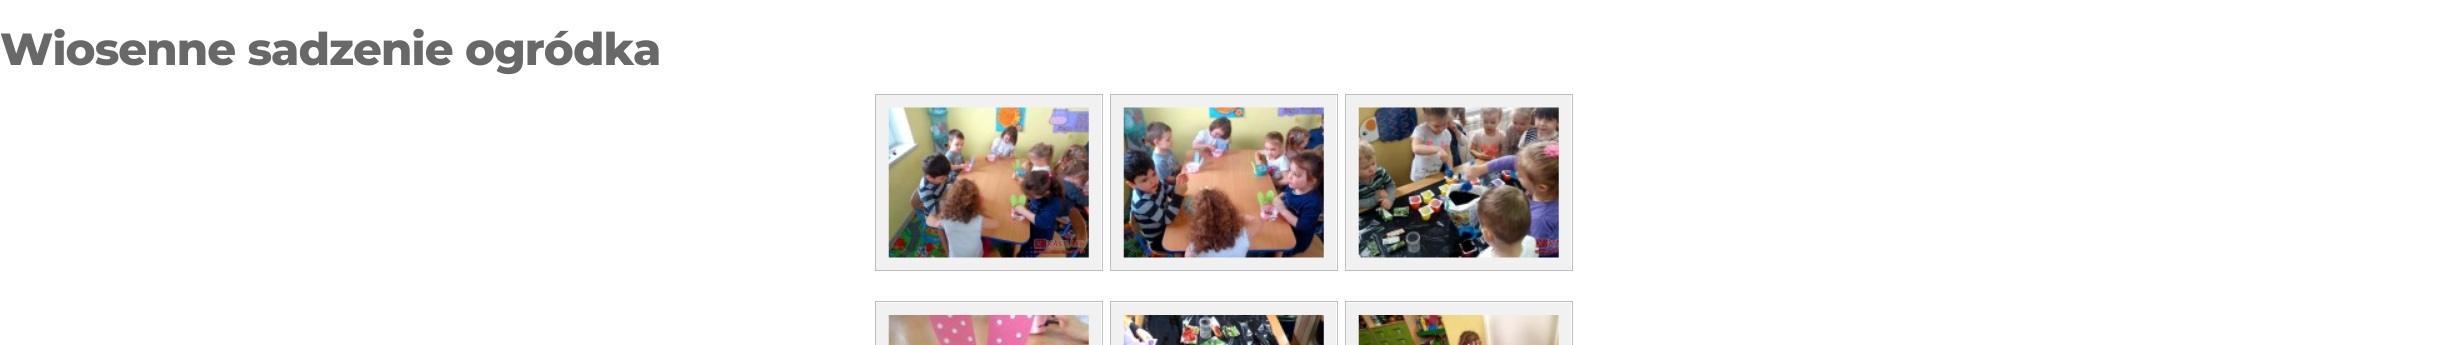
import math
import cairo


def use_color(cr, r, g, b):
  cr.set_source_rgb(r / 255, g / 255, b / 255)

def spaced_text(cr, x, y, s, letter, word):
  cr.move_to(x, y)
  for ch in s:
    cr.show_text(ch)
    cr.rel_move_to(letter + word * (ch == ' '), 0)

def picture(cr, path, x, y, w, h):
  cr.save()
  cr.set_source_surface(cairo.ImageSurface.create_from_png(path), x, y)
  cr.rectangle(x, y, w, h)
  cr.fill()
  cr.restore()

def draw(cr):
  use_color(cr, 255, 255, 255)
  cr.paint()
  cr.rectangle(875.5, 94.5, 227, 176)
  use_color(cr, 189, 189, 189)
  cr.set_line_width(1)
  cr.stroke()
  cr.rectangle(882.5, 101.5, 212, 162)
  use_color(cr, 241, 241, 241)
  cr.set_line_width(13)
  cr.stroke()
  picture(cr, "img_01.png", 888, 107, 201, 151)
  cr.rectangle(1110.5, 94.5, 227, 176)
  use_color(cr, 189, 189, 189)
  cr.set_line_width(1)
  cr.stroke()
  cr.rectangle(1117.5, 101.5, 212, 162)
  use_color(cr, 241, 241, 241)
  cr.set_line_width(13)
  cr.stroke()
  picture(cr, "img_02.png", 1123, 107, 201, 151)
  cr.rectangle(1345.5, 94.5, 227, 176)
  use_color(cr, 189, 189, 189)
  cr.set_line_width(1)
  cr.stroke()
  cr.rectangle(1352.5, 101.5, 212, 162)
  use_color(cr, 241, 241, 241)
  cr.set_line_width(13)
  cr.stroke()
  picture(cr, "img_03.png", 1358, 107, 201, 151)
  cr.rectangle(875.5, 301.5, 227, 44)
  use_color(cr, 189, 189, 189)
  cr.set_line_width(1)
  cr.stroke()
  cr.rectangle(882.5, 309.5, 212, 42)
  use_color(cr, 241, 241, 241)
  cr.set_line_width(13)
  cr.stroke()
  picture(cr, "img_04.png", 888, 315, 201, 30)
  cr.rectangle(1110.5, 301.5, 227, 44)
  use_color(cr, 189, 189, 189)
  cr.set_line_width(1)
  cr.stroke()
  cr.rectangle(1117.5, 309.5, 212, 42)
  use_color(cr, 241, 241, 241)
  cr.set_line_width(13)
  cr.stroke()
  picture(cr, "img_05.png", 1123, 315, 201, 30)
  cr.rectangle(1345.5, 301.5, 227, 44)
  use_color(cr, 189, 189, 189)
  cr.set_line_width(1)
  cr.stroke()
  cr.rectangle(1352.5, 309.5, 212, 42)
  use_color(cr, 241, 241, 241)
  cr.set_line_width(13)
  cr.stroke()
  picture(cr, "img_06.png", 1358, 315, 201, 30)
  cr.select_font_face("Montserrat ExtraBold")
  cr.set_font_size(45)
  use_color(cr, 104, 104, 104)
  spaced_text(cr, 0, 65, "Wiosenne sadzenie ogródka", -0.9, 0)


surface = cairo.ImageSurface(cairo.FORMAT_RGB24, 2453, 345)
cr = cairo.Context(surface)
options = cairo.FontOptions()
options.set_hint_metrics(cairo.HINT_METRICS_OFF)
options.set_hint_style(cairo.HINT_STYLE_NONE)
cr.set_font_options(options)
cr.set_miter_limit(4)
draw(cr)
surface.write_to_png("out.png")
